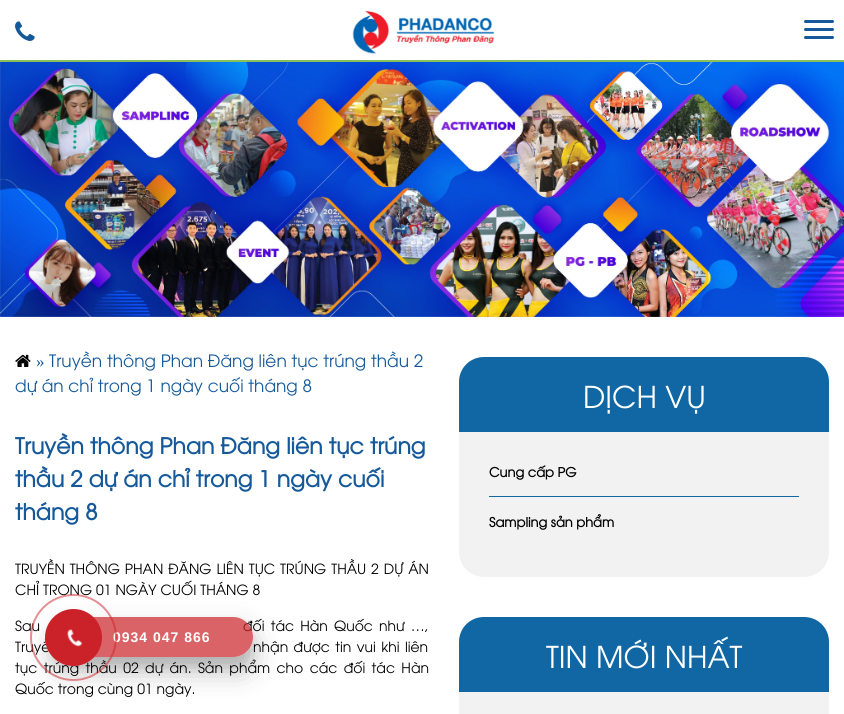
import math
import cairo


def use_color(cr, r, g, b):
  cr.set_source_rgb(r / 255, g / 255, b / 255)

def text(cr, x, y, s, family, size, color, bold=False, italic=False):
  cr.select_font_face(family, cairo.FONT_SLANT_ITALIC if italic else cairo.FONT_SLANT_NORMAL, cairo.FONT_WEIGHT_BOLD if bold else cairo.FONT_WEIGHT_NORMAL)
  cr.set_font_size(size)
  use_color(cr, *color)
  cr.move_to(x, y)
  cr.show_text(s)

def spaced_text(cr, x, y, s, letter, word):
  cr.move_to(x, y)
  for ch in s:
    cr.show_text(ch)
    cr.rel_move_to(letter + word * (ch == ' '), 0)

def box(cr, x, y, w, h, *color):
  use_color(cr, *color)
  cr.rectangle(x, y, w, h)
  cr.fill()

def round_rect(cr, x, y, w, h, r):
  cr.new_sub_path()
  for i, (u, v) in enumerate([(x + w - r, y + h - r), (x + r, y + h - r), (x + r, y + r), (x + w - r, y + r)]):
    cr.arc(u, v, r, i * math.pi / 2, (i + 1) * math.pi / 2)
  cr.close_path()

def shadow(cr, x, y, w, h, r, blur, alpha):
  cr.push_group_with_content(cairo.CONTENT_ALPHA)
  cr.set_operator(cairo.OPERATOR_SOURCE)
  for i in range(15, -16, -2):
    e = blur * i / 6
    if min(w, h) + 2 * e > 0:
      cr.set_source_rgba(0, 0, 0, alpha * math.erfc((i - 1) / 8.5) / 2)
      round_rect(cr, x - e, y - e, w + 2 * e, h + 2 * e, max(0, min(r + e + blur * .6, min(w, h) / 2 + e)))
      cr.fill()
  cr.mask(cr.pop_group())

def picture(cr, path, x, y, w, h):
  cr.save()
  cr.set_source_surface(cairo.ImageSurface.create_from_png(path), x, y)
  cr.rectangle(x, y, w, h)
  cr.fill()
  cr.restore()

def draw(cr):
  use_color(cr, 255, 255, 255)
  cr.paint()
  picture(cr, "img_01.png", 15, 21, 20, 20)
  picture(cr, "img_02.png", 352, 10, 143, 44)
  use_color(cr, 21, 89, 154)
  round_rect(cr, 804, 20, 30, 3, 1.5)
  cr.fill()
  round_rect(cr, 804, 28, 30, 3, 1.5)
  cr.fill()
  round_rect(cr, 804, 36, 30, 3, 1.5)
  cr.fill()
  box(cr, 0, 60, 844, 2, 137, 192, 88)
  picture(cr, "img_03.png", 0, 62, 844, 255)
  picture(cr, "img_04.png", 15, 354, 16, 13)
  use_color(cr, 242, 242, 242)
  round_rect(cr, 459, 357, 370, 220, 25)
  cr.fill()
  use_color(cr, 16, 103, 164)
  cr.new_path()
  cr.move_to(484, 357)
  cr.line_to(804, 357)
  cr.curve_to(818, 357, 829, 368, 829, 382)
  cr.line_to(829, 432)
  cr.line_to(459, 432)
  cr.line_to(459, 382)
  cr.curve_to(459, 368, 470, 357, 484, 357)
  cr.close_path()
  cr.fill()
  box(cr, 489, 496, 310, 1, 16, 103, 164)
  use_color(cr, 242, 242, 242)
  round_rect(cr, 459, 617, 370, 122, 25)
  cr.fill()
  use_color(cr, 16, 103, 164)
  cr.new_path()
  cr.move_to(484, 617)
  cr.line_to(804, 617)
  cr.curve_to(818, 617, 829, 628, 829, 642)
  cr.line_to(829, 692)
  cr.line_to(459, 692)
  cr.line_to(459, 642)
  cr.curve_to(459, 628, 470, 617, 484, 617)
  cr.close_path()
  cr.fill()
  cr.save()
  cr.set_fill_rule(cairo.FILL_RULE_EVEN_ODD)
  cr.new_path()
  cr.move_to(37, 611)
  cr.line_to(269, 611)
  cr.line_to(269, 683)
  cr.line_to(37, 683)
  cr.close_path()
  cr.move_to(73, 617)
  cr.line_to(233, 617)
  cr.curve_to(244, 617, 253, 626, 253, 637)
  cr.curve_to(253, 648, 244, 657, 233, 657)
  cr.line_to(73, 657)
  cr.curve_to(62, 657, 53, 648, 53, 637)
  cr.curve_to(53, 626, 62, 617, 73, 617)
  cr.close_path()
  cr.clip()
  use_color(cr, 0, 0, 0)
  shadow(cr, 53, 627, 200, 40, 20, 5, 0.1)
  cr.restore()
  cr.save()
  cr.set_fill_rule(cairo.FILL_RULE_EVEN_ODD)
  cr.new_path()
  cr.move_to(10, 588)
  cr.line_to(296, 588)
  cr.line_to(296, 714)
  cr.line_to(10, 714)
  cr.close_path()
  cr.move_to(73, 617)
  cr.line_to(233, 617)
  cr.curve_to(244, 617, 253, 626, 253, 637)
  cr.curve_to(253, 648, 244, 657, 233, 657)
  cr.line_to(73, 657)
  cr.curve_to(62, 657, 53, 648, 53, 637)
  cr.curve_to(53, 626, 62, 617, 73, 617)
  cr.close_path()
  cr.clip()
  use_color(cr, 0, 0, 0)
  shadow(cr, 53, 631, 200, 40, 20, 14, 0.25)
  cr.restore()
  text(cr, 36, 367, "»", "Liberation Serif", 17, (21, 89, 154))
  text(cr, 49, 367, "Truyền thông Phan Đăng liên tục trúng thầu 2", "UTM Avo", 17, (21, 89, 154))
  text(cr, 15, 392, "dự án chỉ trong 1 ngày cuối tháng 8", "UTM Avo", 17, (21, 89, 154))
  text(cr, 15, 454, "Truyền thông Phan Đăng liên tục trúng", "UTM Avo", 22, (21, 89, 154), bold=True)
  text(cr, 15, 487, "thầu 2 dự án chỉ trong 1 ngày cuối", "UTM Avo", 22, (21, 89, 154), bold=True)
  text(cr, 15, 520, "tháng 8", "UTM Avo", 22, (21, 89, 154), bold=True)
  cr.select_font_face("UTM Avo")
  cr.set_font_size(14)
  use_color(cr, 0, 0, 0)
  spaced_text(cr, 15, 574, "TRUYỀN THÔNG PHAN ĐĂNG LIÊN TỤC TRÚNG THẦU 2 DỰ ÁN", 0, 1)
  text(cr, 15, 595, "CHỈ TRONG 01 NGÀY CUỐI THÁNG 8", "UTM Avo", 14, (0, 0, 0))
  spaced_text(cr, 15, 631, "Sau", 0, 2.25)
  spaced_text(cr, 243, 631, "đối tác Hàn Quốc như …,", 0, 2.25)
  spaced_text(cr, 15, 652, "Truyề", 0, 1.5)
  spaced_text(cr, 253, 652, "nhận được tin vui khi liên", 0, 1.5)
  spaced_text(cr, 15, 673, "tục trúng thầu 02 dự án. Sản phẩm cho các đối tác Hàn", 0, 2.5)
  text(cr, 15, 694, "Quốc trong cùng 01 ngày.", "UTM Avo", 14, (0, 0, 0))
  text(cr, 583, 408, "DỊCH VỤ", "UTM Avo", 30, (255, 255, 255))
  text(cr, 489, 477, "Cung cấp PG", "UTM Avo", 13, (0, 0, 0), bold=True)
  text(cr, 489, 527, "Sampling sản phẩm", "UTM Avo", 13, (0, 0, 0), bold=True)
  text(cr, 546, 668, "TIN MỚI NHẤT", "UTM Avo", 30, (255, 255, 255))
  cr.set_source_rgba(0.796, 0.133, 0.161, 0.7)
  round_rect(cr, 53, 617, 200, 40, 20)
  cr.fill()
  cr.select_font_face("Liberation Sans", cairo.FONT_SLANT_NORMAL, cairo.FONT_WEIGHT_BOLD)
  cr.set_font_size(14)
  use_color(cr, 255, 255, 255)
  spaced_text(cr, 113, 642, "0934 047 866", 1, 0)
  cr.new_path()
  cr.arc(73.5, 637.5, 42.5, 0, 2 * math.pi)
  cr.set_source_rgba(0.796, 0.133, 0.161, 0.5)
  cr.stroke()
  use_color(cr, 203, 34, 41)
  cr.arc(73.5, 637.5, 28.5, 0, 2 * math.pi)
  cr.fill()
  picture(cr, "img_05.png", 67, 629, 16, 18)


surface = cairo.ImageSurface(cairo.FORMAT_RGB24, 844, 714)
cr = cairo.Context(surface)
options = cairo.FontOptions()
options.set_hint_metrics(cairo.HINT_METRICS_OFF)
options.set_hint_style(cairo.HINT_STYLE_NONE)
cr.set_font_options(options)
cr.set_miter_limit(4)
draw(cr)
surface.write_to_png("out.png")
